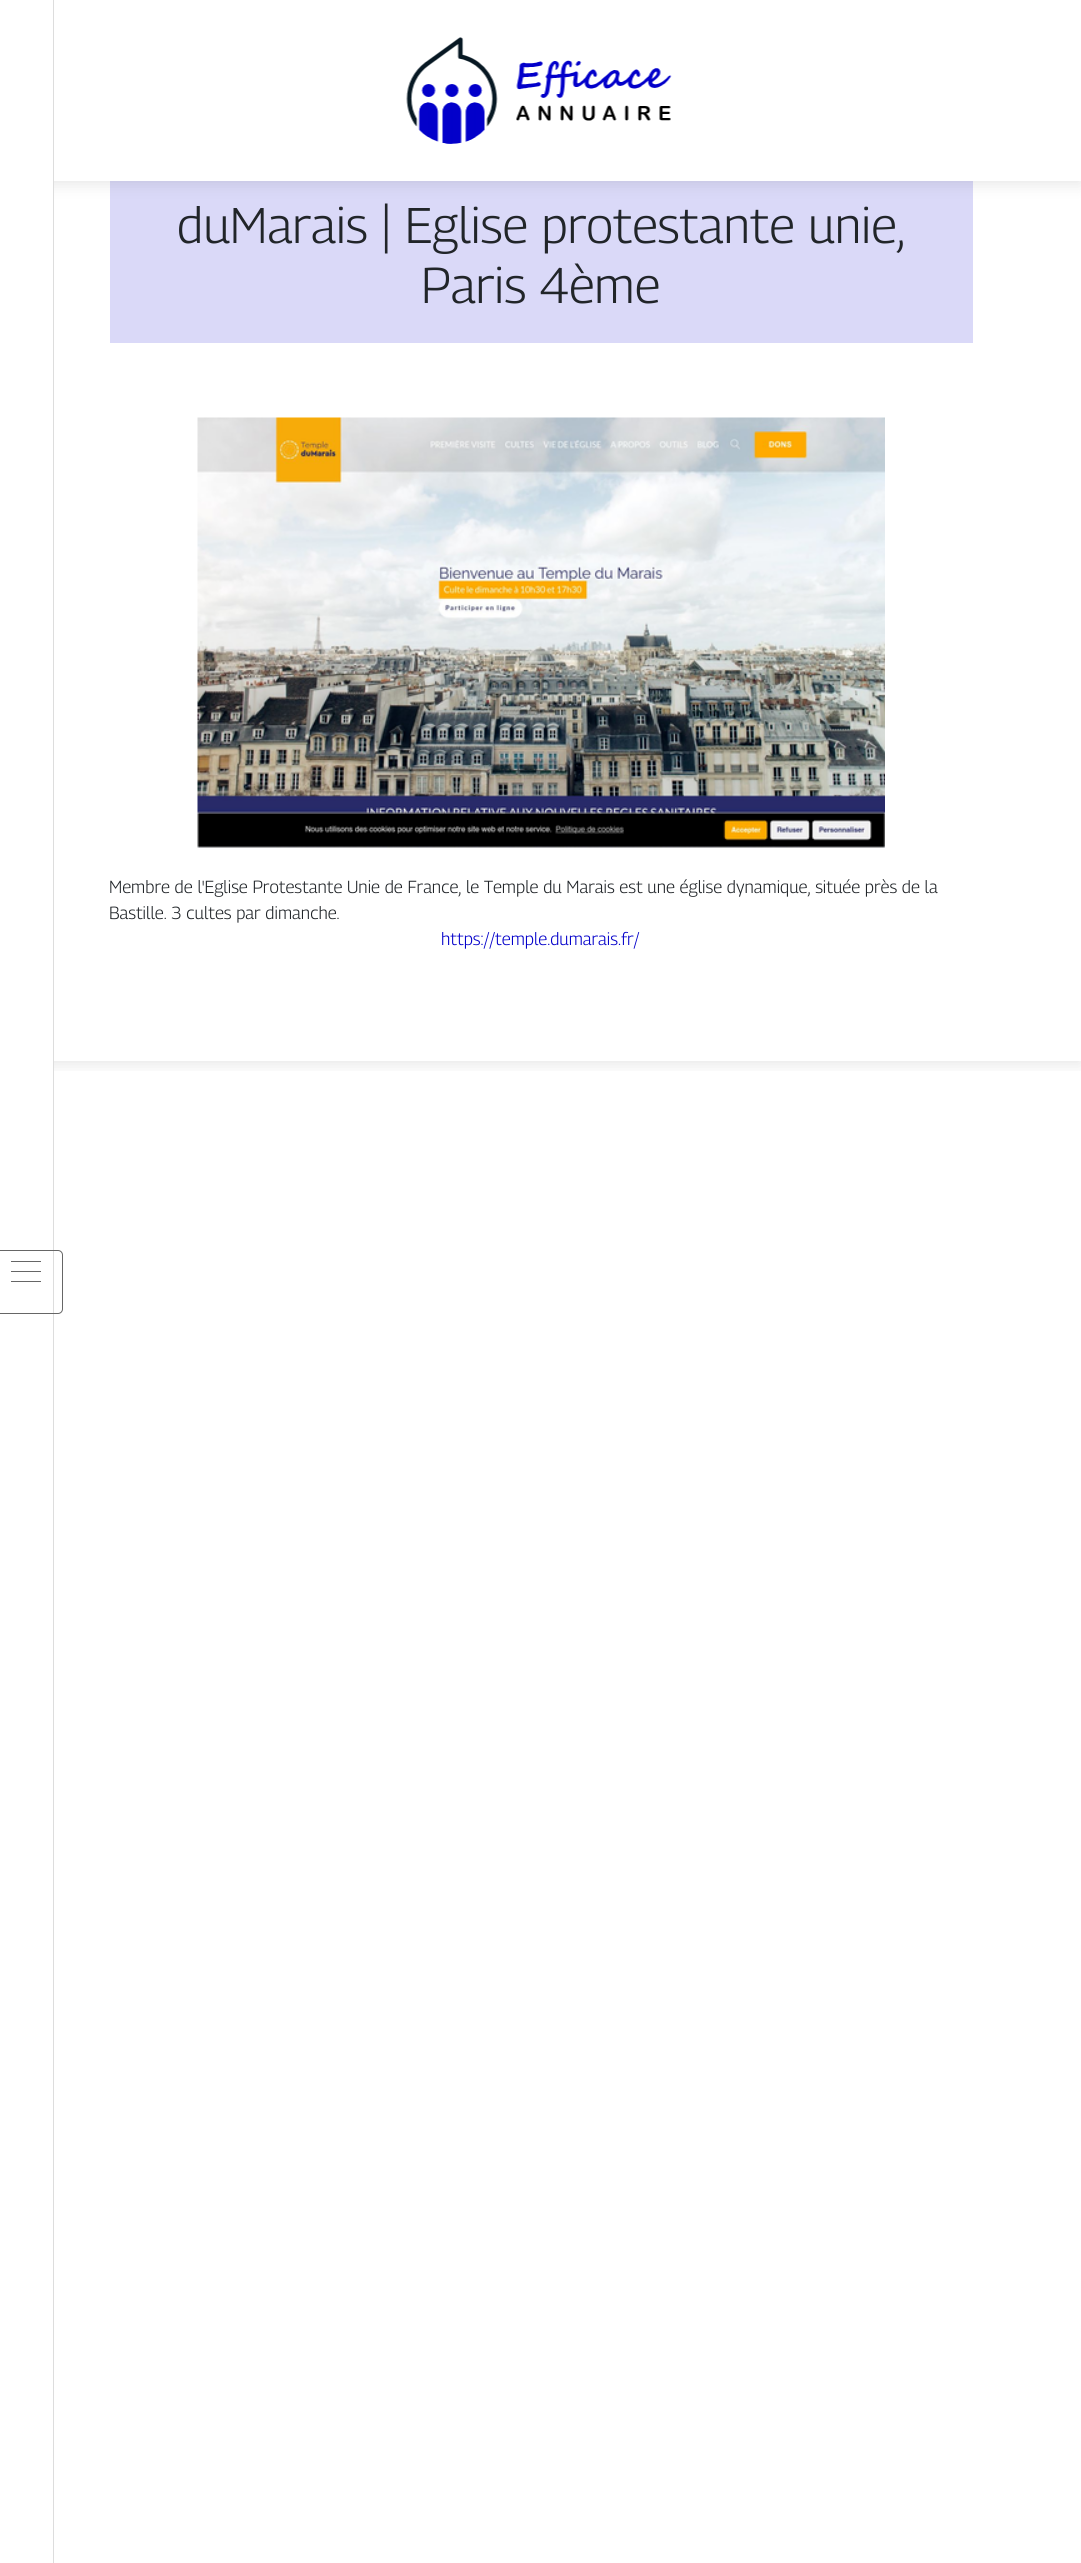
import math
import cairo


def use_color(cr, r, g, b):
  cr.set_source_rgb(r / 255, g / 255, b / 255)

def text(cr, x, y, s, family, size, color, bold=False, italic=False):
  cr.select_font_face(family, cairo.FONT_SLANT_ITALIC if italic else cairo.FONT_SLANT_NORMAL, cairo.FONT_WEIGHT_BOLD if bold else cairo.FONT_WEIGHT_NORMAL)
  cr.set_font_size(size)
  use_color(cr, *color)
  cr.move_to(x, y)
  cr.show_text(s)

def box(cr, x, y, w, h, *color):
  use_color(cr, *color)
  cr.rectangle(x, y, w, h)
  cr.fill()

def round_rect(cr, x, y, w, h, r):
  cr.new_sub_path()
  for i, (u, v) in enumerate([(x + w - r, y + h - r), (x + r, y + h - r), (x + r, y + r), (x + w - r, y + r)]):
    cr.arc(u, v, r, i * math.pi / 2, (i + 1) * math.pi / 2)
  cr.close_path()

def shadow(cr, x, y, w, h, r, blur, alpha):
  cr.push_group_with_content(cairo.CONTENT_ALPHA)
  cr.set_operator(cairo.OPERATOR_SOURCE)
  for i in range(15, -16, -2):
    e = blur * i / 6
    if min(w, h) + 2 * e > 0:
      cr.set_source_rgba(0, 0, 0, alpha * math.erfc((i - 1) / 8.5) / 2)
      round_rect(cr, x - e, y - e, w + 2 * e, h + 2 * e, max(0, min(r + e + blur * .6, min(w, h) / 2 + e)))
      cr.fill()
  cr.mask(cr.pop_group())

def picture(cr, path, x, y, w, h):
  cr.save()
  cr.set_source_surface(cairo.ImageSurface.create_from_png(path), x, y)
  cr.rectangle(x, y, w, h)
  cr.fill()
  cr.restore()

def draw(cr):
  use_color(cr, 255, 255, 255)
  cr.paint()
  cr.save()
  cr.rectangle(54, 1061, 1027, 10)
  cr.clip()
  use_color(cr, 0, 0, 0)
  shadow(cr, 0, 153, 1081, 911, 0, 8, 0.1)
  cr.restore()
  box(cr, 110, 181, 863, 162, 218, 217, 248)
  use_color(cr, 0, 0, 0)
  shadow(cr, 0, 3, 1081, 181, 0, 8, 0.1)
  box(cr, 54, 0, 1027, 181, 255, 255, 255)
  box(cr, 0, 0, 53, 1074, 255, 255, 255)
  box(cr, 53, 0, 1, 2563, 221, 221, 221)
  round_rect(cr, -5.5, 1250.5, 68, 63, 4.5)
  use_color(cr, 102, 102, 102)
  cr.set_line_width(1)
  cr.stroke()
  box(cr, 11, 1261, 30, 1, 102, 102, 102)
  box(cr, 11, 1271, 30, 1, 102, 102, 102)
  box(cr, 11, 1281, 30, 1, 102, 102, 102)
  picture(cr, "img_01.png", 406, 37, 266, 107)
  picture(cr, "img_02.png", 197, 417, 688, 431)
  text(cr, 177, 243, "duMarais | Eglise protestante unie,", "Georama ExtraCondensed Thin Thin", 50, (33, 37, 41))
  text(cr, 421, 303, "Paris 4ème", "Georama ExtraCondensed Thin Thin", 50, (33, 37, 41))
  text(cr, 109, 893, "Membre de l'Eglise Protestante Unie de France, le Temple du Marais est une église dynamique, située près de la", "Georama ExtraCondensed Thin Thin", 17.5, (33, 37, 41))
  text(cr, 109, 919, "Bastille. 3 cultes par dimanche.", "Georama ExtraCondensed Thin Thin", 17.5, (33, 37, 41))
  text(cr, 441, 945, "https://temple.dumarais.fr/", "Georama ExtraCondensed Thin Thin", 17.5, (3, 0, 202))


surface = cairo.ImageSurface(cairo.FORMAT_RGB24, 1081, 2563)
cr = cairo.Context(surface)
options = cairo.FontOptions()
options.set_hint_metrics(cairo.HINT_METRICS_OFF)
options.set_hint_style(cairo.HINT_STYLE_NONE)
cr.set_font_options(options)
cr.set_miter_limit(4)
draw(cr)
surface.write_to_png("out.png")
